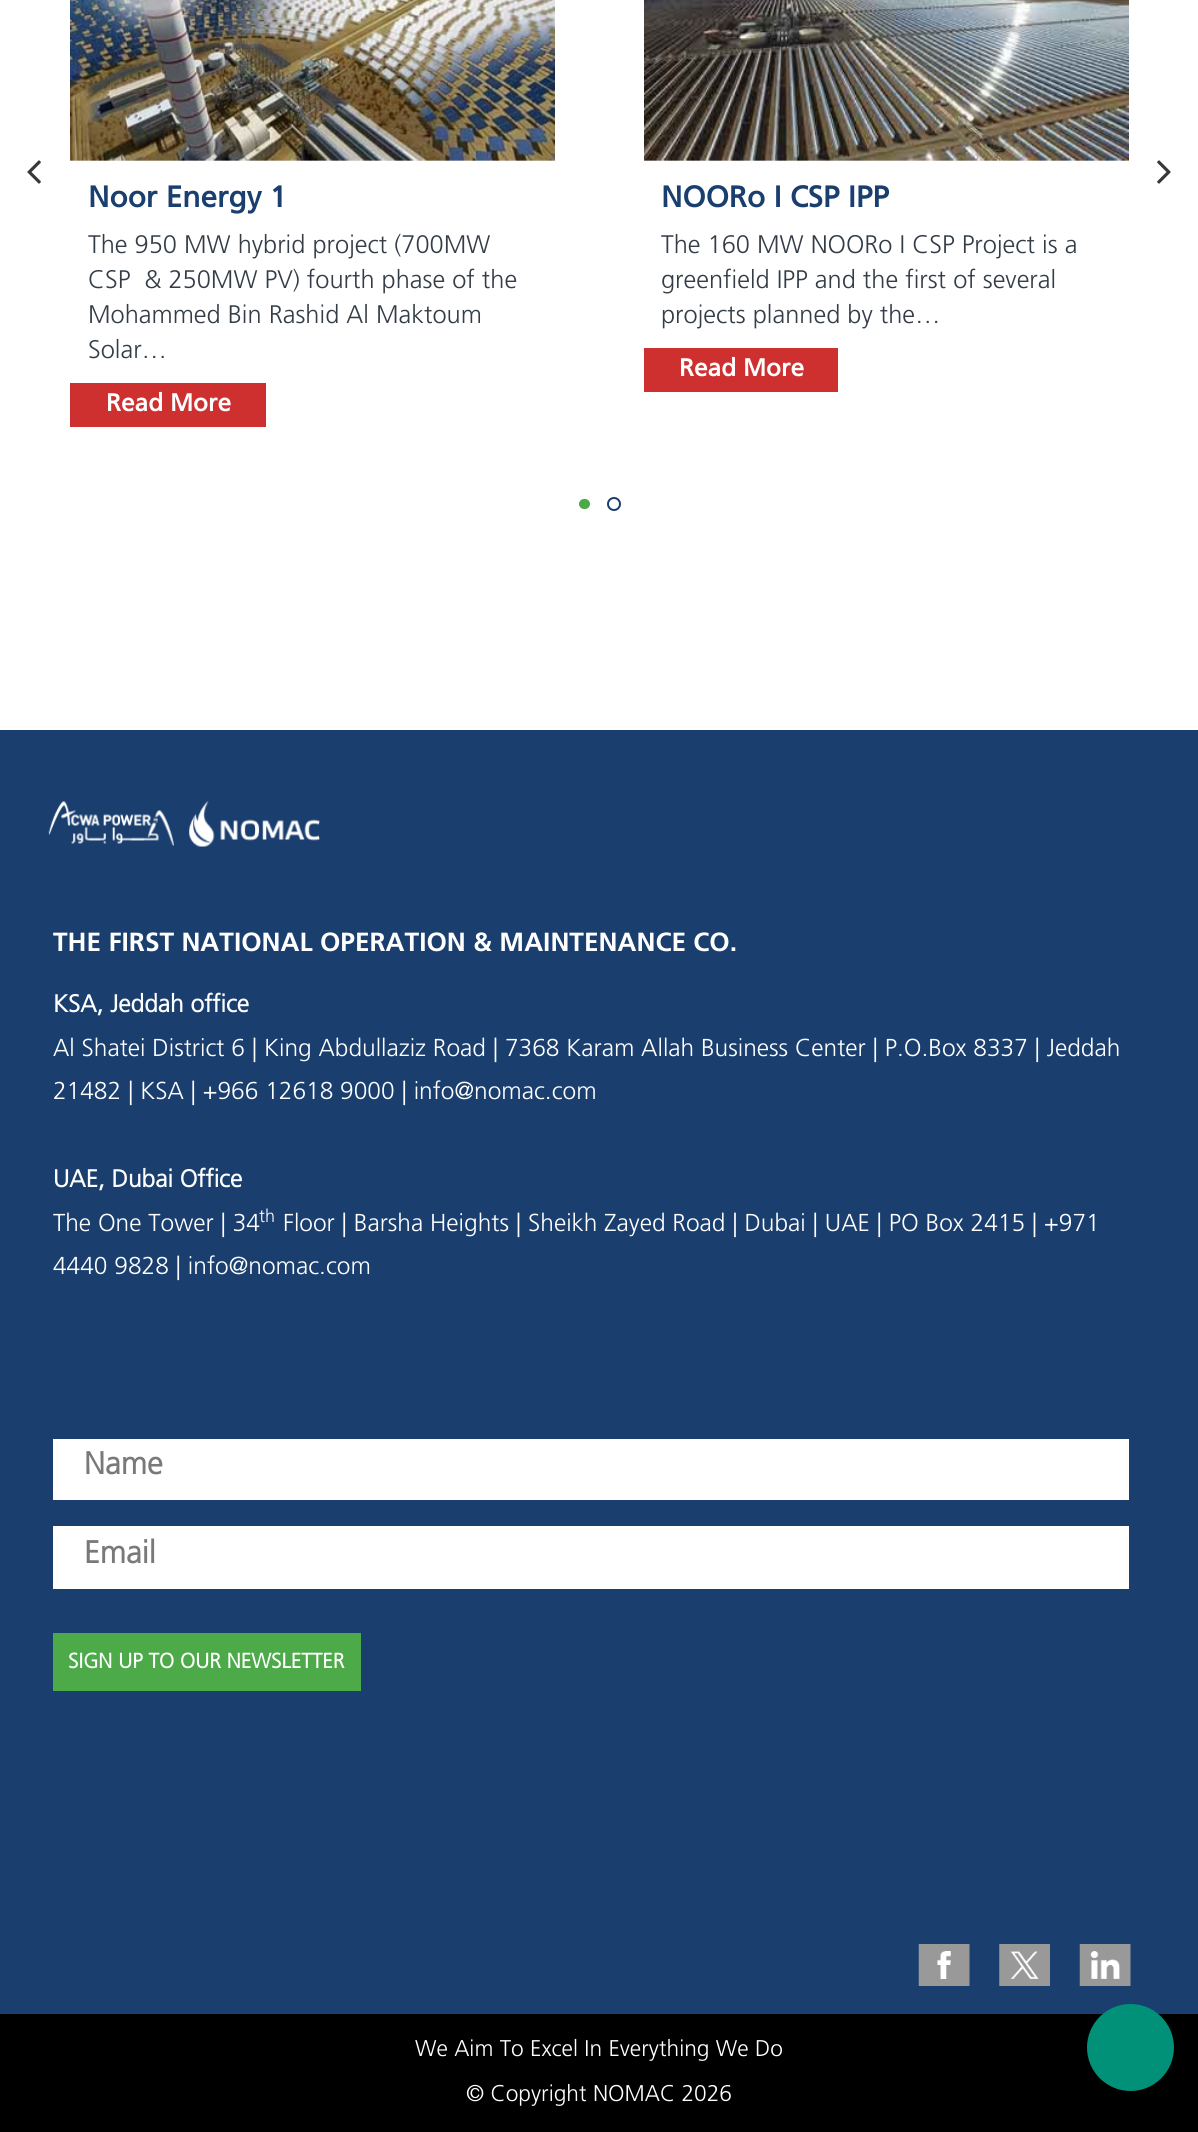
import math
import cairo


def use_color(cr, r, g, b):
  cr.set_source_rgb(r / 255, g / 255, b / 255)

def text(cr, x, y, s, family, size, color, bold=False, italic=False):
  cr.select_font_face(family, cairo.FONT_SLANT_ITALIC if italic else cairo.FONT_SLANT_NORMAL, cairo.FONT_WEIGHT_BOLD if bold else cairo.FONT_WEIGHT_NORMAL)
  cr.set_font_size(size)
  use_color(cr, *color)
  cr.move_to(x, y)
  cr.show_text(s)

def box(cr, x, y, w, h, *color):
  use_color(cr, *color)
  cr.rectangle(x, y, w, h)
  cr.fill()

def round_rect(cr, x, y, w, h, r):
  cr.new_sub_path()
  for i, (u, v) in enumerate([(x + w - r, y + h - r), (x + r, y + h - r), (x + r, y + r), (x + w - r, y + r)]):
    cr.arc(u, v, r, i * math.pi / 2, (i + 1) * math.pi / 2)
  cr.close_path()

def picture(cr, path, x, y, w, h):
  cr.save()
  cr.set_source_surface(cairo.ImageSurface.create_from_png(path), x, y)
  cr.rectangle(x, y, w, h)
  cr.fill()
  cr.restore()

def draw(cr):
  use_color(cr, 255, 255, 255)
  cr.paint()
  picture(cr, "img_01.png", 27, 160, 14, 24)
  picture(cr, "img_02.png", 1157, 160, 14, 24)
  box(cr, 70, 160, 485, 1, 238, 238, 238)
  picture(cr, "img_03.png", 70, 0, 485, 161)
  box(cr, 70, 383, 196, 44, 206, 47, 47)
  box(cr, 644, 160, 485, 1, 238, 238, 238)
  picture(cr, "img_04.png", 644, 0, 485, 161)
  box(cr, 644, 348, 194, 44, 206, 47, 47)
  use_color(cr, 75, 170, 72)
  round_rect(cr, 579, 499, 11, 10, 5)
  cr.fill()
  cr.arc(614, 504, 6, 0, 2 * math.pi)
  use_color(cr, 26, 62, 110)
  cr.stroke()
  box(cr, 0, 730, 1198, 1284, 26, 63, 111)
  picture(cr, "img_05.png", 48, 801, 272, 46)
  box(cr, 53, 1439, 1076, 61, 255, 255, 255)
  box(cr, 53, 1526, 1076, 63, 255, 255, 255)
  box(cr, 53, 1633, 308, 58, 76, 170, 73)
  picture(cr, "img_06.png", 918, 1944, 52, 42)
  picture(cr, "img_07.png", 999, 1944, 51, 42)
  picture(cr, "img_08.png", 1079, 1944, 52, 42)
  box(cr, 0, 2014, 1198, 118, 0, 0, 0)
  use_color(cr, 0, 145, 120)
  cr.arc(1130.5, 2047.5, 43.5, 0, 2 * math.pi)
  cr.fill()
  text(cr, 88, 207, "Noor Energy 1", "Frutiger", 29.75, (26, 63, 111), bold=True)
  text(cr, 88, 253, "The 950 MW hybrid project (700MW", "Frutiger Light", 25.4, (52, 61, 71))
  text(cr, 88, 288, "CSP  & 250MW PV) fourth phase of the", "Frutiger Light", 25.4, (52, 61, 71))
  text(cr, 88, 323, "Mohammed Bin Rashid Al Maktoum", "Frutiger Light", 25.4, (52, 61, 71))
  text(cr, 88, 358, "Solar…", "Frutiger Light", 25.4, (52, 61, 71))
  text(cr, 106, 411, "Read More", "Frutiger", 24.5, (255, 255, 255), bold=True)
  text(cr, 661, 207, "NOORo I CSP IPP", "Frutiger", 29.75, (26, 63, 111), bold=True)
  text(cr, 661, 253, "The 160 MW NOORo I CSP Project is a", "Frutiger Light", 25.4, (52, 61, 71))
  text(cr, 661, 288, "greenfield IPP and the first of several", "Frutiger Light", 25.4, (52, 61, 71))
  text(cr, 661, 323, "projects planned by the…", "Frutiger Light", 25.4, (52, 61, 71))
  text(cr, 679, 376, "Read More", "Frutiger", 24.5, (255, 255, 255), bold=True)
  text(cr, 53, 951, "THE FIRST NATIONAL OPERATION & MAINTENANCE CO.", "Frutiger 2", 26.25, (255, 255, 255), bold=True)
  text(cr, 53, 1012, "KSA, Jeddah office", "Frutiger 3", 24.5, (255, 255, 255), bold=True)
  text(cr, 53, 1056, "Al Shatei District 6 | King Abdullaziz Road | 7368 Karam Allah Business Center | P.O.Box 8337 | Jeddah", "Frutiger Light", 24.5, (255, 255, 255))
  text(cr, 53, 1099, "21482 | KSA | +966 12618 9000 | info@nomac.com", "Frutiger Light", 24.5, (255, 255, 255))
  text(cr, 53, 1187, "UAE, Dubai Office", "Frutiger 3", 24.5, (255, 255, 255), bold=True)
  text(cr, 53, 1231, "The One Tower | 34", "Frutiger Light", 24.5, (255, 255, 255))
  text(cr, 259, 1222, "th", "Frutiger Light", 18, (255, 255, 255))
  text(cr, 283, 1231, "Floor | Barsha Heights | Sheikh Zayed Road | Dubai | UAE | PO Box 2415 | +971", "Frutiger Light", 24.5, (255, 255, 255))
  text(cr, 53, 1274, "4440 9828 | info@nomac.com", "Frutiger Light", 24.5, (255, 255, 255))
  text(cr, 84, 1474, "Name", "Frutiger 3", 31.5, (121, 121, 124), bold=True)
  text(cr, 84, 1563, "Email", "Frutiger 3", 31.5, (121, 121, 124), bold=True)
  text(cr, 68, 1668, "SIGN UP TO OUR NEWSLETTER", "Frutiger 3", 21, (255, 255, 255), bold=True)
  text(cr, 415, 2056, "We Aim To Excel In Everything We Do", "Frutiger Light", 22.75, (255, 255, 255))
  text(cr, 466, 2101, "© Copyright NOMAC 2026", "Frutiger Light", 22.75, (255, 255, 255))


surface = cairo.ImageSurface(cairo.FORMAT_RGB24, 1198, 2132)
cr = cairo.Context(surface)
options = cairo.FontOptions()
options.set_hint_metrics(cairo.HINT_METRICS_OFF)
options.set_hint_style(cairo.HINT_STYLE_NONE)
cr.set_font_options(options)
cr.set_miter_limit(4)
draw(cr)
surface.write_to_png("out.png")
